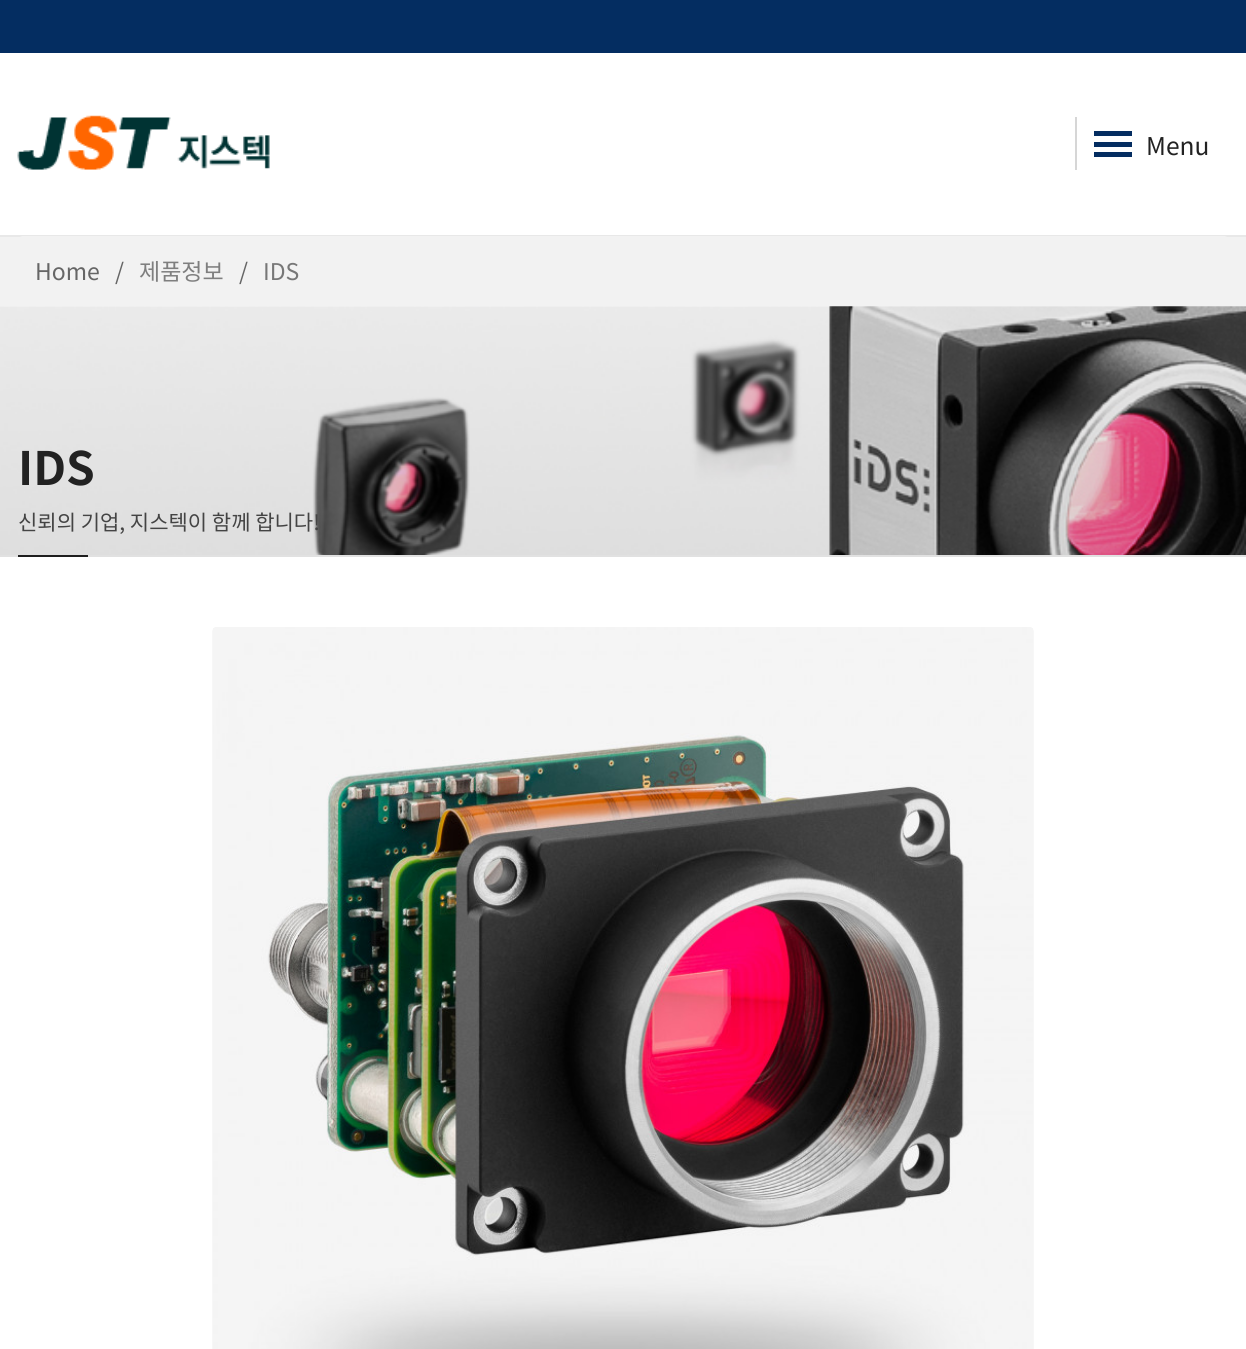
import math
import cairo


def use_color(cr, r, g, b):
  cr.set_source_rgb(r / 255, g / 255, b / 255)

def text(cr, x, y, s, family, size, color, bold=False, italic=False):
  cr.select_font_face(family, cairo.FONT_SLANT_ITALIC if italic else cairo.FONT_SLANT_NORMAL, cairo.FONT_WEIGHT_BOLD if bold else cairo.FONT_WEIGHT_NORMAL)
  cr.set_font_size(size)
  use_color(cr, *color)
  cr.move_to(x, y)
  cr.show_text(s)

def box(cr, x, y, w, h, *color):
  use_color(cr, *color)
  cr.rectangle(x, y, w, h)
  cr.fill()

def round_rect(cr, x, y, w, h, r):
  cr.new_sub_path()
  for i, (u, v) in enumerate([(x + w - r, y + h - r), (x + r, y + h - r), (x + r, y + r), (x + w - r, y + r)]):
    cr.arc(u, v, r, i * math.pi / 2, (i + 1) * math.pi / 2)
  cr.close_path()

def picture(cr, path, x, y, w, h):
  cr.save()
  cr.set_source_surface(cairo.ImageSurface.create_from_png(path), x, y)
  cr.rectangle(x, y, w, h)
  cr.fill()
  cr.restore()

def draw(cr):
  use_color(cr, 255, 255, 255)
  cr.paint()
  box(cr, 0, 0, 1246, 53, 4, 45, 97)
  picture(cr, "img_01.png", 17, 115, 253, 55)
  box(cr, 1075, 117, 2, 53, 214, 214, 214)
  box(cr, 1094, 131, 38, 5, 4, 45, 97)
  box(cr, 1094, 142, 38, 5, 4, 45, 97)
  box(cr, 1094, 152, 38, 5, 4, 45, 97)
  box(cr, 0, 237, 1246, 69, 242, 242, 242)
  box(cr, 0, 235, 1246, 2, 232, 232, 232)
  use_color(cr, 242, 242, 242)
  round_rect(cr, 18, 236, 1211, 70, 5)
  cr.fill()
  picture(cr, "img_02.png", 0, 306, 1246, 249)
  box(cr, 0, 555, 1246, 2, 225, 225, 225)
  box(cr, 18, 555, 70, 2, 30, 30, 30)
  use_color(cr, 247, 247, 247)
  round_rect(cr, 212, 627, 822, 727, 5)
  cr.fill()
  picture(cr, "img_03.png", 213, 627, 820, 722)
  text(cr, 1146, 155, "Menu", "Noto Sans KR", 24.5, (34, 34, 34))
  text(cr, 35, 280, "Home", "Noto Sans KR", 23, (102, 102, 102))
  text(cr, 115, 280, "/", "Noto Sans KR", 23, (102, 102, 102))
  text(cr, 139, 280, "제품정보", "Noto Sans KR", 23, (127, 127, 127))
  text(cr, 239, 280, "/", "Noto Sans KR", 23, (102, 102, 102))
  text(cr, 263, 280, "IDS", "Noto Sans KR", 23, (119, 119, 119))
  text(cr, 18, 485, "IDS", "Noto Sans KR", 46, (34, 34, 34), bold=True)
  text(cr, 18, 530, "신뢰의 기업, 지스텍이 함께 합니다!", "Noto Sans KR", 21, (68, 68, 68))


surface = cairo.ImageSurface(cairo.FORMAT_RGB24, 1246, 1349)
cr = cairo.Context(surface)
options = cairo.FontOptions()
options.set_hint_metrics(cairo.HINT_METRICS_OFF)
options.set_hint_style(cairo.HINT_STYLE_NONE)
cr.set_font_options(options)
cr.set_miter_limit(4)
draw(cr)
surface.write_to_png("out.png")
